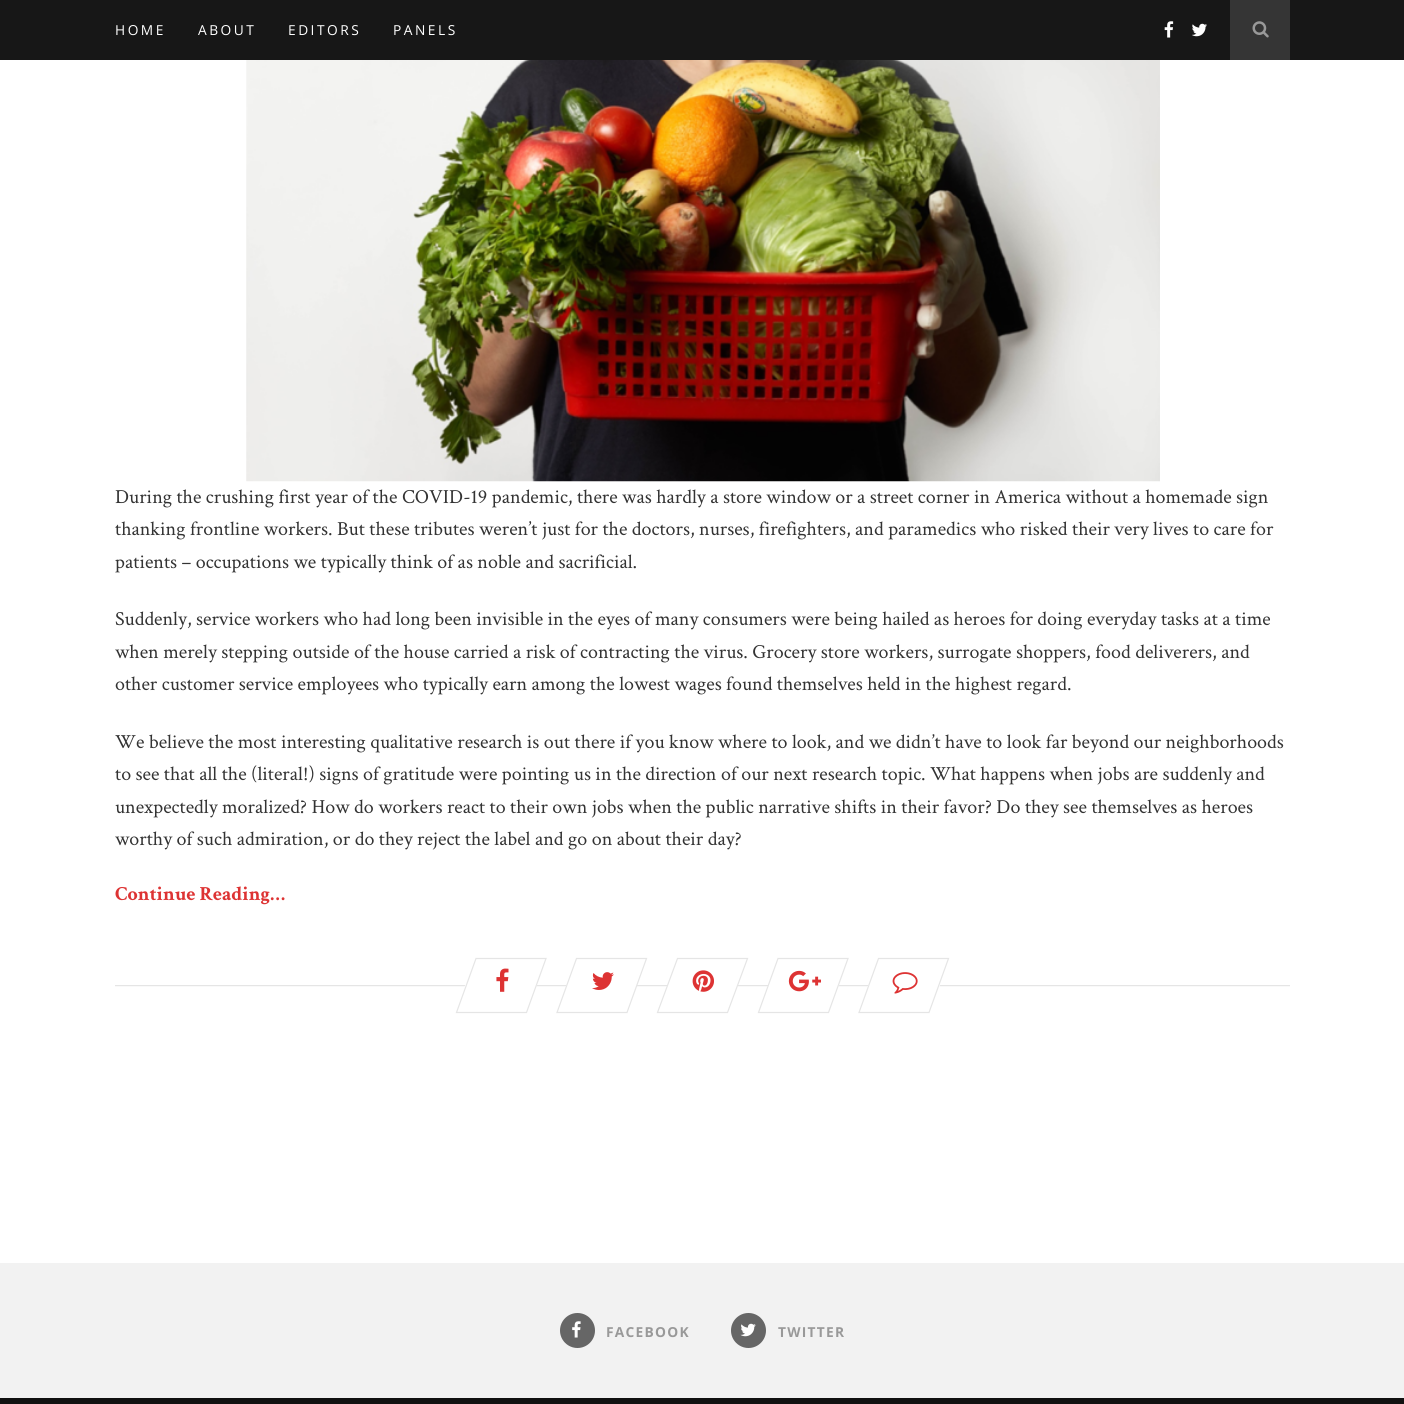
import math
import cairo


def use_color(cr, r, g, b):
  cr.set_source_rgb(r / 255, g / 255, b / 255)

def text(cr, x, y, s, family, size, color, bold=False, italic=False):
  cr.select_font_face(family, cairo.FONT_SLANT_ITALIC if italic else cairo.FONT_SLANT_NORMAL, cairo.FONT_WEIGHT_BOLD if bold else cairo.FONT_WEIGHT_NORMAL)
  cr.set_font_size(size)
  use_color(cr, *color)
  cr.move_to(x, y)
  cr.show_text(s)

def spaced_text(cr, x, y, s, letter, word):
  cr.move_to(x, y)
  for ch in s:
    cr.show_text(ch)
    cr.rel_move_to(letter + word * (ch == ' '), 0)

def box(cr, x, y, w, h, *color):
  use_color(cr, *color)
  cr.rectangle(x, y, w, h)
  cr.fill()

def picture(cr, path, x, y, w, h):
  cr.save()
  cr.set_source_surface(cairo.ImageSurface.create_from_png(path), x, y)
  cr.rectangle(x, y, w, h)
  cr.fill()
  cr.restore()

def draw(cr):
  use_color(cr, 255, 255, 255)
  cr.paint()
  box(cr, 0, 0, 1404, 60, 23, 23, 23)
  picture(cr, "img_01.png", 1164, 21, 10, 17)
  picture(cr, "img_02.png", 1192, 23, 15, 14)
  box(cr, 1230, 0, 60, 60, 53, 53, 53)
  picture(cr, "img_03.png", 1252, 21, 17, 17)
  picture(cr, "img_04.png", 246, 60, 914, 422)
  picture(cr, "img_05.png", 115, 985, 1175, 2)
  use_color(cr, 255, 255, 255)
  cr.new_path()
  cr.move_to(475, 958)
  cr.line_to(547, 958)
  cr.line_to(527, 1013)
  cr.line_to(455, 1013)
  cr.close_path()
  cr.fill()
  cr.new_path()
  cr.move_to(476, 958.5)
  cr.line_to(546, 958.5)
  cr.line_to(526.5, 1012.5)
  cr.line_to(456.5, 1012.5)
  cr.close_path()
  use_color(cr, 229, 229, 229)
  cr.set_line_width(1.2)
  cr.stroke()
  picture(cr, "img_06.png", 496, 968, 13, 24)
  use_color(cr, 255, 255, 255)
  cr.new_path()
  cr.move_to(576, 958)
  cr.line_to(647, 958)
  cr.line_to(627, 1013)
  cr.line_to(556, 1013)
  cr.close_path()
  cr.fill()
  cr.new_path()
  cr.move_to(576.5, 958.5)
  cr.line_to(646.5, 958.5)
  cr.line_to(627, 1012.5)
  cr.line_to(557, 1012.5)
  cr.close_path()
  use_color(cr, 229, 229, 229)
  cr.stroke()
  picture(cr, "img_07.png", 592, 972, 22, 18)
  use_color(cr, 255, 255, 255)
  cr.new_path()
  cr.move_to(677, 958)
  cr.line_to(748, 958)
  cr.line_to(728, 1013)
  cr.line_to(657, 1013)
  cr.close_path()
  cr.fill()
  cr.new_path()
  cr.move_to(677.5, 958.5)
  cr.line_to(747.5, 958.5)
  cr.line_to(727.5, 1012.5)
  cr.line_to(657.5, 1012.5)
  cr.close_path()
  use_color(cr, 229, 229, 229)
  cr.stroke()
  picture(cr, "img_08.png", 692, 970, 22, 22)
  use_color(cr, 255, 255, 255)
  cr.new_path()
  cr.move_to(778, 958)
  cr.line_to(849, 958)
  cr.line_to(829, 1013)
  cr.line_to(758, 1013)
  cr.close_path()
  cr.fill()
  cr.new_path()
  cr.move_to(778, 958.5)
  cr.line_to(848, 958.5)
  cr.line_to(828.5, 1012.5)
  cr.line_to(758.5, 1012.5)
  cr.close_path()
  use_color(cr, 229, 229, 229)
  cr.stroke()
  picture(cr, "img_09.png", 788, 970, 33, 22)
  use_color(cr, 255, 255, 255)
  cr.new_path()
  cr.move_to(878, 958)
  cr.line_to(950, 958)
  cr.line_to(930, 1013)
  cr.line_to(858, 1013)
  cr.close_path()
  cr.fill()
  cr.new_path()
  cr.move_to(878.5, 958.5)
  cr.line_to(948.5, 958.5)
  cr.line_to(929, 1012.5)
  cr.line_to(859, 1012.5)
  cr.close_path()
  use_color(cr, 229, 229, 229)
  cr.stroke()
  picture(cr, "img_10.png", 892, 972, 26, 22)
  box(cr, 0, 1263, 1404, 135, 242, 242, 242)
  use_color(cr, 102, 102, 102)
  cr.arc(577.5, 1330.5, 17.5, 0, 2 * math.pi)
  cr.fill()
  picture(cr, "img_11.png", 572, 1321, 9, 17)
  cr.arc(748.5, 1330.5, 17.5, 0, 2 * math.pi)
  cr.fill()
  picture(cr, "img_12.png", 740, 1323, 16, 14)
  box(cr, 0, 1398, 1404, 6, 17, 17, 17)
  cr.select_font_face("Open Sans")
  cr.set_font_size(13.75)
  use_color(cr, 255, 255, 255)
  spaced_text(cr, 115, 35, "HOME", 2.5, 0)
  spaced_text(cr, 198, 35, "ABOUT", 2.5, 0)
  spaced_text(cr, 288, 35, "EDITORS", 2.5, 0)
  spaced_text(cr, 393, 35, "PANELS", 2.5, 0)
  text(cr, 115, 503, "During the crushing first year of the COVID-19 pandemic, there was hardly a store window or a street corner in America without a homemade sign", "Crimson Text", 20, (51, 51, 51))
  text(cr, 115, 535, "thanking frontline workers. But these tributes weren’t just for the doctors, nurses, firefighters, and paramedics who risked their very lives to care for", "Crimson Text", 20, (51, 51, 51))
  text(cr, 115, 568, "patients – occupations we typically think of as noble and sacrificial.", "Crimson Text", 20, (51, 51, 51))
  text(cr, 115, 625, "Suddenly, service workers who had long been invisible in the eyes of many consumers were being hailed as heroes for doing everyday tasks at a time", "Crimson Text", 20, (51, 51, 51))
  text(cr, 115, 658, "when merely stepping outside of the house carried a risk of contracting the virus. Grocery store workers, surrogate shoppers, food deliverers, and", "Crimson Text", 20, (51, 51, 51))
  text(cr, 115, 690, "other customer service employees who typically earn among the lowest wages found themselves held in the highest regard.", "Crimson Text", 20, (51, 51, 51))
  text(cr, 115, 748, "We believe the most interesting qualitative research is out there if you know where to look, and we didn’t have to look far beyond our neighborhoods", "Crimson Text", 20, (51, 51, 51))
  text(cr, 115, 780, "to see that all the (literal!) signs of gratitude were pointing us in the direction of our next research topic. What happens when jobs are suddenly and", "Crimson Text", 20, (51, 51, 51))
  text(cr, 115, 813, "unexpectedly moralized? How do workers react to their own jobs when the public narrative shifts in their favor? Do they see themselves as heroes", "Crimson Text", 20, (51, 51, 51))
  text(cr, 115, 845, "worthy of such admiration, or do they reject the label and go on about their day?", "Crimson Text", 20, (51, 51, 51))
  text(cr, 115, 900, "Continue Reading…", "Crimson Text", 20, (221, 51, 51), bold=True)
  cr.select_font_face("Open Sans", cairo.FONT_SLANT_NORMAL, cairo.FONT_WEIGHT_BOLD)
  cr.set_font_size(13.75)
  use_color(cr, 153, 153, 153)
  spaced_text(cr, 606, 1337, "FACEBOOK", 1.25, 0)
  spaced_text(cr, 778, 1337, "TWITTER", 1.25, 0)


surface = cairo.ImageSurface(cairo.FORMAT_RGB24, 1404, 1404)
cr = cairo.Context(surface)
options = cairo.FontOptions()
options.set_hint_metrics(cairo.HINT_METRICS_OFF)
options.set_hint_style(cairo.HINT_STYLE_NONE)
cr.set_font_options(options)
cr.set_miter_limit(4)
draw(cr)
surface.write_to_png("out.png")
